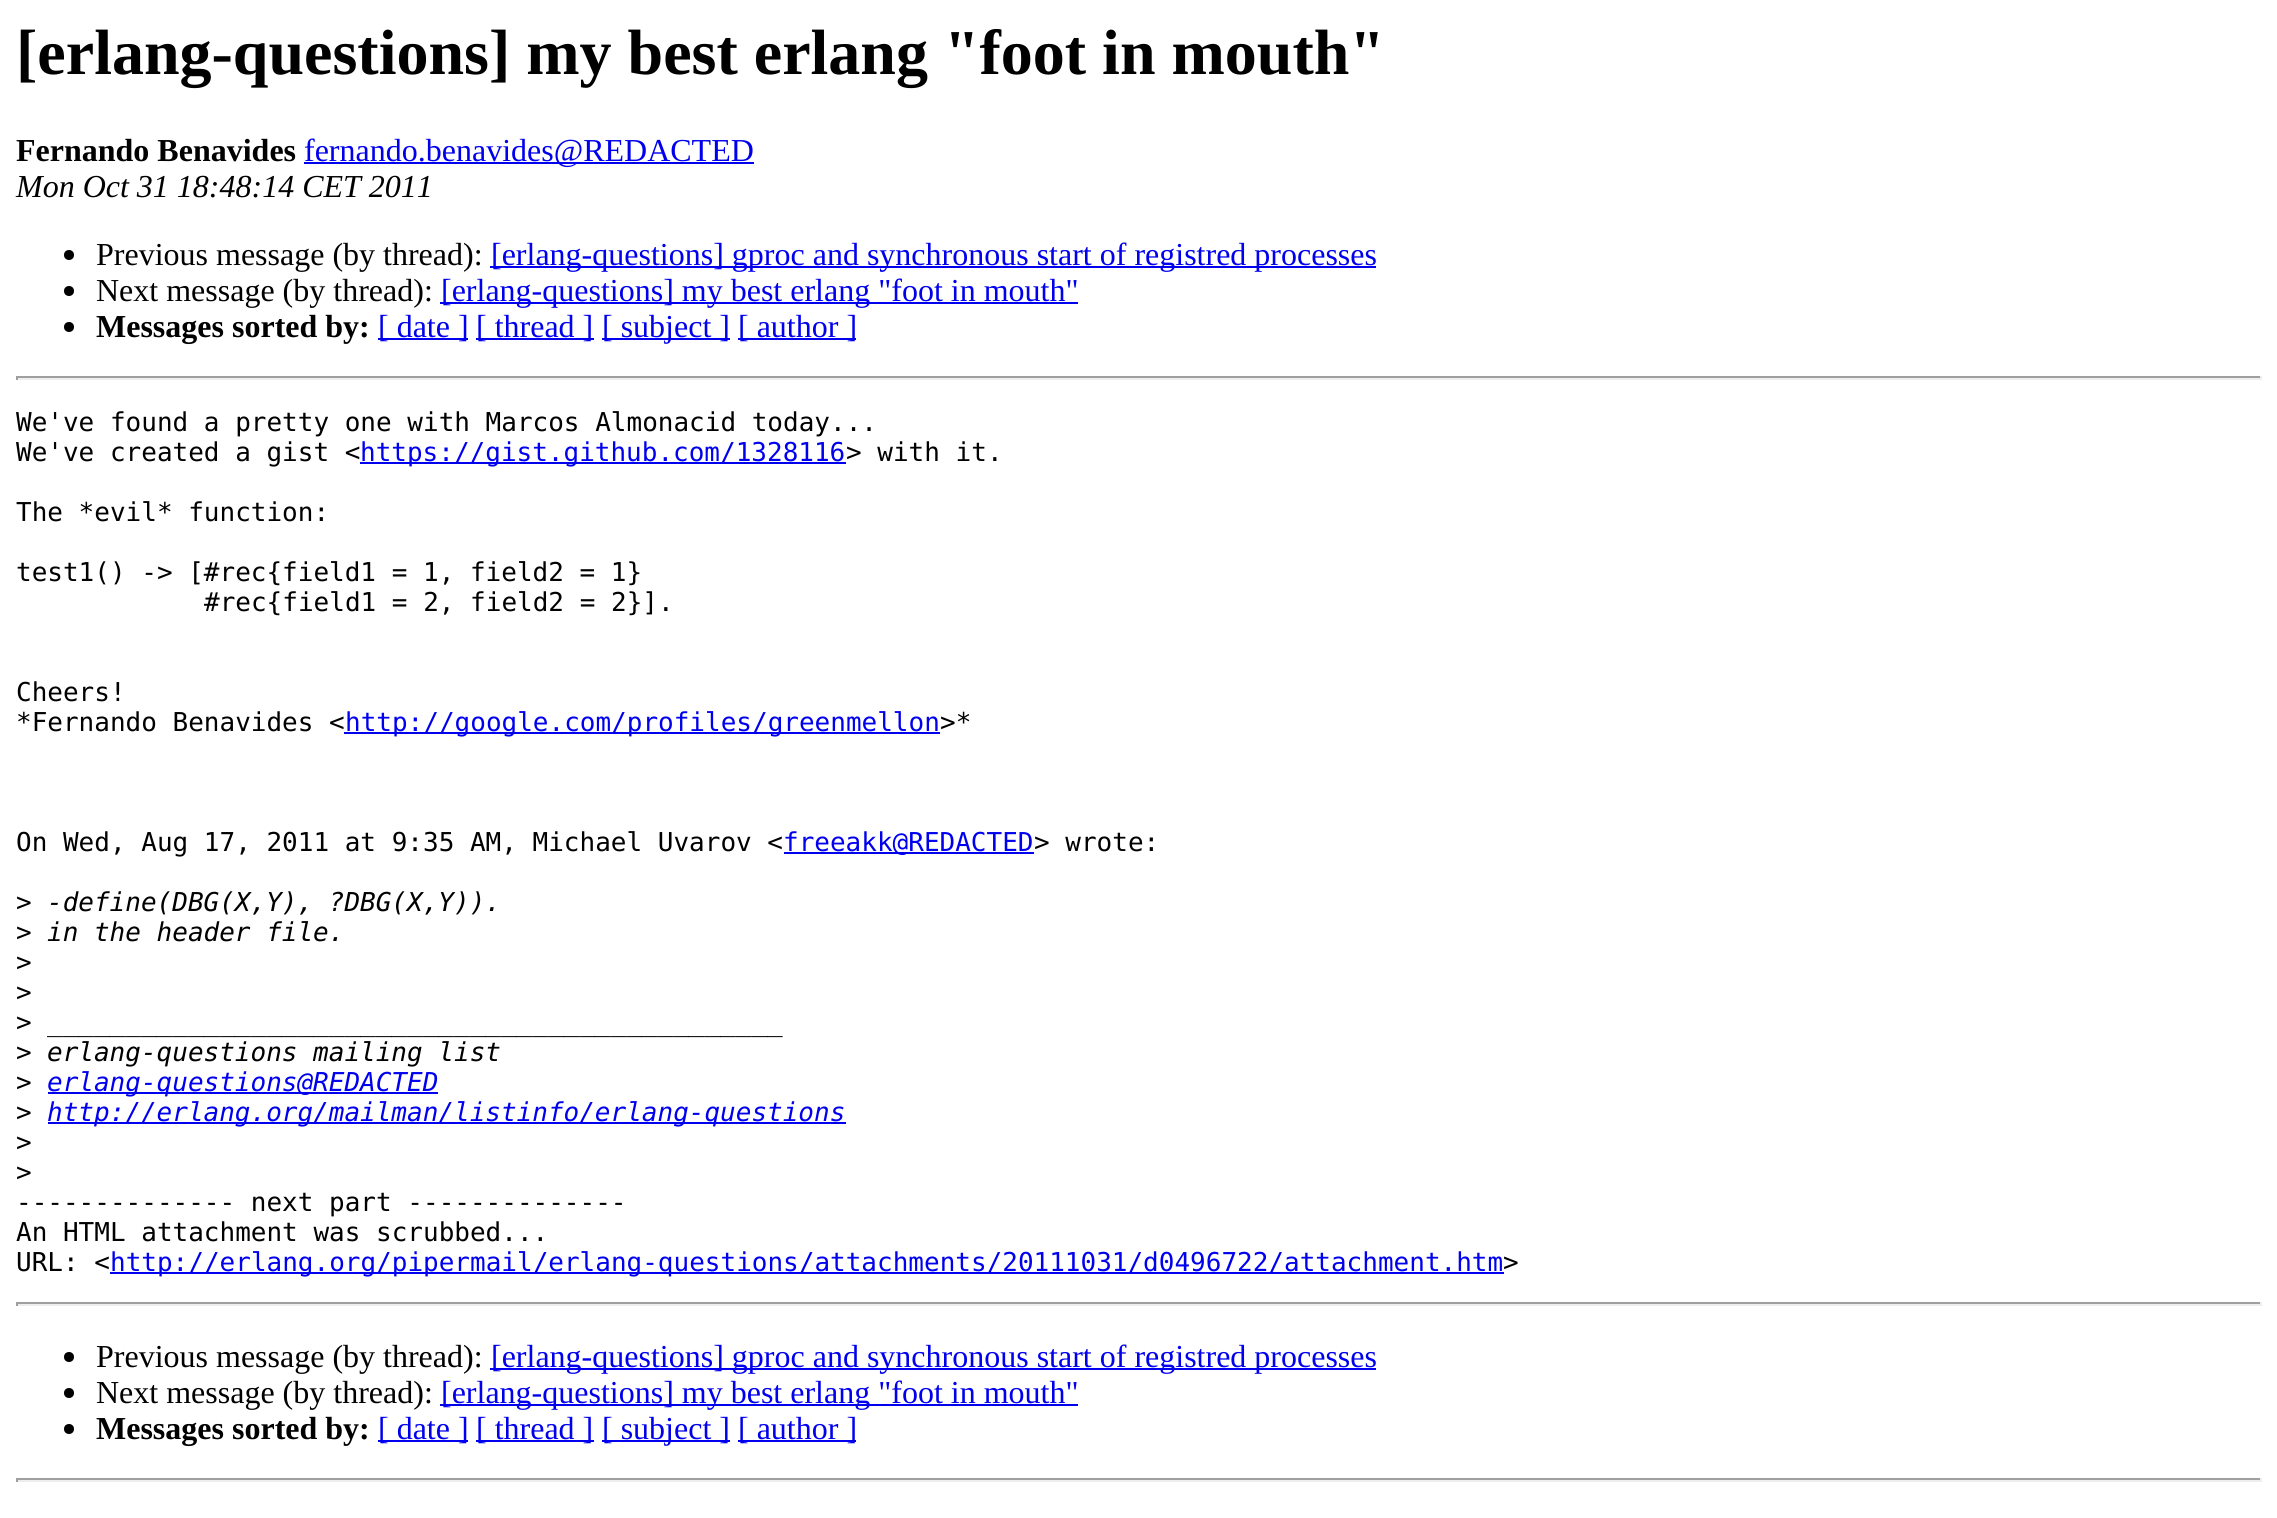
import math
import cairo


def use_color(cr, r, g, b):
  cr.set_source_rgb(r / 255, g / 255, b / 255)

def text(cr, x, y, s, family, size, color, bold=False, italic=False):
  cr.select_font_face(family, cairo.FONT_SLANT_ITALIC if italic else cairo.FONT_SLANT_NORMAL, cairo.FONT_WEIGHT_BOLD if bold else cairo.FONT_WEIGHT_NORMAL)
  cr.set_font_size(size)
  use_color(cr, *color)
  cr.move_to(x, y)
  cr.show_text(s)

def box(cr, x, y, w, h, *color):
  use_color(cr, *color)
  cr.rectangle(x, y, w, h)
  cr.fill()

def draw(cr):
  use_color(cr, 255, 255, 255)
  cr.paint()
  box(cr, 304, 162, 450, 2, 0, 0, 238)
  use_color(cr, 0, 0, 0)
  cr.arc(69, 255, 5, 0, 2 * math.pi)
  cr.fill()
  box(cr, 490, 266, 886, 2, 0, 0, 238)
  use_color(cr, 0, 0, 0)
  cr.arc(69, 291, 5, 0, 2 * math.pi)
  cr.fill()
  box(cr, 440, 302, 638, 2, 0, 0, 238)
  use_color(cr, 0, 0, 0)
  cr.arc(69, 327, 5, 0, 2 * math.pi)
  cr.fill()
  box(cr, 378, 338, 90, 2, 0, 0, 238)
  box(cr, 476, 338, 118, 2, 0, 0, 238)
  box(cr, 602, 338, 128, 2, 0, 0, 238)
  box(cr, 738, 338, 118, 2, 0, 0, 238)
  box(cr, 16, 376, 2246, 2, 159, 159, 159)
  box(cr, 2260, 376, 2, 4, 238, 238, 238)
  box(cr, 16, 378, 2246, 2, 238, 238, 238)
  box(cr, 16, 376, 2, 4, 159, 159, 159)
  box(cr, 360, 462, 486, 2, 0, 0, 238)
  box(cr, 344, 732, 596, 2, 0, 0, 238)
  box(cr, 784, 852, 250, 2, 0, 0, 238)
  box(cr, 48, 1092, 390, 2, 0, 0, 238)
  box(cr, 48, 1122, 798, 2, 0, 0, 238)
  box(cr, 110, 1272, 1394, 2, 0, 0, 238)
  box(cr, 16, 1302, 2246, 2, 159, 159, 159)
  box(cr, 2260, 1302, 2, 4, 238, 238, 238)
  box(cr, 16, 1304, 2246, 2, 238, 238, 238)
  box(cr, 16, 1302, 2, 4, 159, 159, 159)
  use_color(cr, 0, 0, 0)
  cr.arc(69, 1357, 5, 0, 2 * math.pi)
  cr.fill()
  box(cr, 490, 1368, 886, 2, 0, 0, 238)
  use_color(cr, 0, 0, 0)
  cr.arc(69, 1393, 5, 0, 2 * math.pi)
  cr.fill()
  box(cr, 440, 1404, 638, 2, 0, 0, 238)
  use_color(cr, 0, 0, 0)
  cr.arc(69, 1429, 5, 0, 2 * math.pi)
  cr.fill()
  box(cr, 378, 1440, 90, 2, 0, 0, 238)
  box(cr, 476, 1440, 118, 2, 0, 0, 238)
  box(cr, 602, 1440, 128, 2, 0, 0, 238)
  box(cr, 738, 1440, 118, 2, 0, 0, 238)
  box(cr, 16, 1478, 2246, 2, 159, 159, 159)
  box(cr, 2260, 1478, 2, 4, 238, 238, 238)
  box(cr, 16, 1480, 2246, 2, 238, 238, 238)
  box(cr, 16, 1478, 2, 4, 159, 159, 159)
  text(cr, 16, 74, "[erlang-questions] my best erlang \"foot in mouth\"", "Liberation Serif", 64, (0, 0, 0), bold=True)
  text(cr, 16, 161, "Fernando Benavides", "Liberation Serif", 32, (0, 0, 0), bold=True)
  text(cr, 304, 161, "fernando.benavides@REDACTED", "Liberation Serif", 32, (0, 0, 238))
  text(cr, 16, 197, "Mon Oct 31 18:48:14 CET 2011", "Liberation Serif", 32, (0, 0, 0), italic=True)
  text(cr, 96, 265, "Previous message (by thread):", "Liberation Serif", 32, (0, 0, 0))
  text(cr, 491, 265, "[erlang-questions] gproc and synchronous start of registred processes", "Liberation Serif", 32, (0, 0, 238))
  text(cr, 96, 301, "Next message (by thread):", "Liberation Serif", 32, (0, 0, 0))
  text(cr, 441, 301, "[erlang-questions] my best erlang \"foot in mouth\"", "Liberation Serif", 32, (0, 0, 238))
  text(cr, 96, 337, "Messages sorted by:", "Liberation Serif", 32, (0, 0, 0), bold=True)
  text(cr, 378, 337, "[ date ]", "Liberation Serif", 32, (0, 0, 238))
  text(cr, 476, 337, "[ thread ]", "Liberation Serif", 32, (0, 0, 238))
  text(cr, 602, 337, "[ subject ]", "Liberation Serif", 32, (0, 0, 238))
  text(cr, 738, 337, "[ author ]", "Liberation Serif", 32, (0, 0, 238))
  text(cr, 16, 431, "We've found a pretty one with Marcos Almonacid today...", "DejaVu Sans Mono", 26, (0, 0, 0))
  text(cr, 16, 461, "We've created a gist <", "DejaVu Sans Mono", 26, (0, 0, 0))
  text(cr, 360, 461, "https://gist.github.com/1328116", "DejaVu Sans Mono", 26, (0, 0, 238))
  text(cr, 846, 461, "> with it.", "DejaVu Sans Mono", 26, (0, 0, 0))
  text(cr, 16, 521, "The *evil* function:", "DejaVu Sans Mono", 26, (0, 0, 0))
  text(cr, 16, 581, "test1() -> [#rec{field1 = 1, field2 = 1}", "DejaVu Sans Mono", 26, (0, 0, 0))
  text(cr, 204, 611, "#rec{field1 = 2, field2 = 2}].", "DejaVu Sans Mono", 26, (0, 0, 0))
  text(cr, 16, 701, "Cheers!", "DejaVu Sans Mono", 26, (0, 0, 0))
  text(cr, 16, 731, "*Fernando Benavides <", "DejaVu Sans Mono", 26, (0, 0, 0))
  text(cr, 345, 731, "http://google.com/profiles/greenmellon", "DejaVu Sans Mono", 26, (0, 0, 238))
  text(cr, 940, 731, ">*", "DejaVu Sans Mono", 26, (0, 0, 0))
  text(cr, 16, 851, "On Wed, Aug 17, 2011 at 9:35 AM, Michael Uvarov <", "DejaVu Sans Mono", 26, (0, 0, 0))
  text(cr, 783, 851, "freeakk@REDACTED", "DejaVu Sans Mono", 26, (0, 0, 238))
  text(cr, 1034, 851, "> wrote:", "DejaVu Sans Mono", 26, (0, 0, 0))
  text(cr, 16, 911, ">", "DejaVu Sans Mono", 26, (0, 0, 0))
  text(cr, 47, 911, "-define(DBG(X,Y), ?DBG(X,Y)).", "DejaVu Sans Mono", 26, (0, 0, 0), italic=True)
  text(cr, 16, 941, ">", "DejaVu Sans Mono", 26, (0, 0, 0))
  text(cr, 47, 941, "in the header file.", "DejaVu Sans Mono", 26, (0, 0, 0), italic=True)
  text(cr, 16, 971, ">", "DejaVu Sans Mono", 26, (0, 0, 0))
  text(cr, 16, 1001, ">", "DejaVu Sans Mono", 26, (0, 0, 0))
  text(cr, 16, 1031, ">", "DejaVu Sans Mono", 26, (0, 0, 0))
  text(cr, 47, 1031, "_______________________________________________", "DejaVu Sans Mono", 26, (0, 0, 0), italic=True)
  text(cr, 16, 1061, ">", "DejaVu Sans Mono", 26, (0, 0, 0))
  text(cr, 47, 1061, "erlang-questions mailing list", "DejaVu Sans Mono", 26, (0, 0, 0), italic=True)
  text(cr, 16, 1091, ">", "DejaVu Sans Mono", 26, (0, 0, 0))
  text(cr, 47, 1091, "erlang-questions@REDACTED", "DejaVu Sans Mono", 26, (0, 0, 238), italic=True)
  text(cr, 16, 1121, ">", "DejaVu Sans Mono", 26, (0, 0, 0))
  text(cr, 47, 1121, "http://erlang.org/mailman/listinfo/erlang-questions", "DejaVu Sans Mono", 26, (0, 0, 238), italic=True)
  text(cr, 16, 1151, ">", "DejaVu Sans Mono", 26, (0, 0, 0))
  text(cr, 16, 1181, ">", "DejaVu Sans Mono", 26, (0, 0, 0))
  text(cr, 16, 1211, "-------------- next part --------------", "DejaVu Sans Mono", 26, (0, 0, 0))
  text(cr, 16, 1241, "An HTML attachment was scrubbed...", "DejaVu Sans Mono", 26, (0, 0, 0))
  text(cr, 16, 1271, "URL: <", "DejaVu Sans Mono", 26, (0, 0, 0))
  text(cr, 110, 1271, "http://erlang.org/pipermail/erlang-questions/attachments/20111031/d0496722/attachment.htm", "DejaVu Sans Mono", 26, (0, 0, 238))
  text(cr, 1503, 1271, ">", "DejaVu Sans Mono", 26, (0, 0, 0))
  text(cr, 96, 1367, "Previous message (by thread):", "Liberation Serif", 32, (0, 0, 0))
  text(cr, 491, 1367, "[erlang-questions] gproc and synchronous start of registred processes", "Liberation Serif", 32, (0, 0, 238))
  text(cr, 96, 1403, "Next message (by thread):", "Liberation Serif", 32, (0, 0, 0))
  text(cr, 441, 1403, "[erlang-questions] my best erlang \"foot in mouth\"", "Liberation Serif", 32, (0, 0, 238))
  text(cr, 96, 1439, "Messages sorted by:", "Liberation Serif", 32, (0, 0, 0), bold=True)
  text(cr, 378, 1439, "[ date ]", "Liberation Serif", 32, (0, 0, 238))
  text(cr, 476, 1439, "[ thread ]", "Liberation Serif", 32, (0, 0, 238))
  text(cr, 602, 1439, "[ subject ]", "Liberation Serif", 32, (0, 0, 238))
  text(cr, 738, 1439, "[ author ]", "Liberation Serif", 32, (0, 0, 238))


surface = cairo.ImageSurface(cairo.FORMAT_RGB24, 2277, 1518)
cr = cairo.Context(surface)
options = cairo.FontOptions()
options.set_hint_metrics(cairo.HINT_METRICS_OFF)
options.set_hint_style(cairo.HINT_STYLE_NONE)
cr.set_font_options(options)
cr.set_miter_limit(4)
draw(cr)
surface.write_to_png("out.png")
